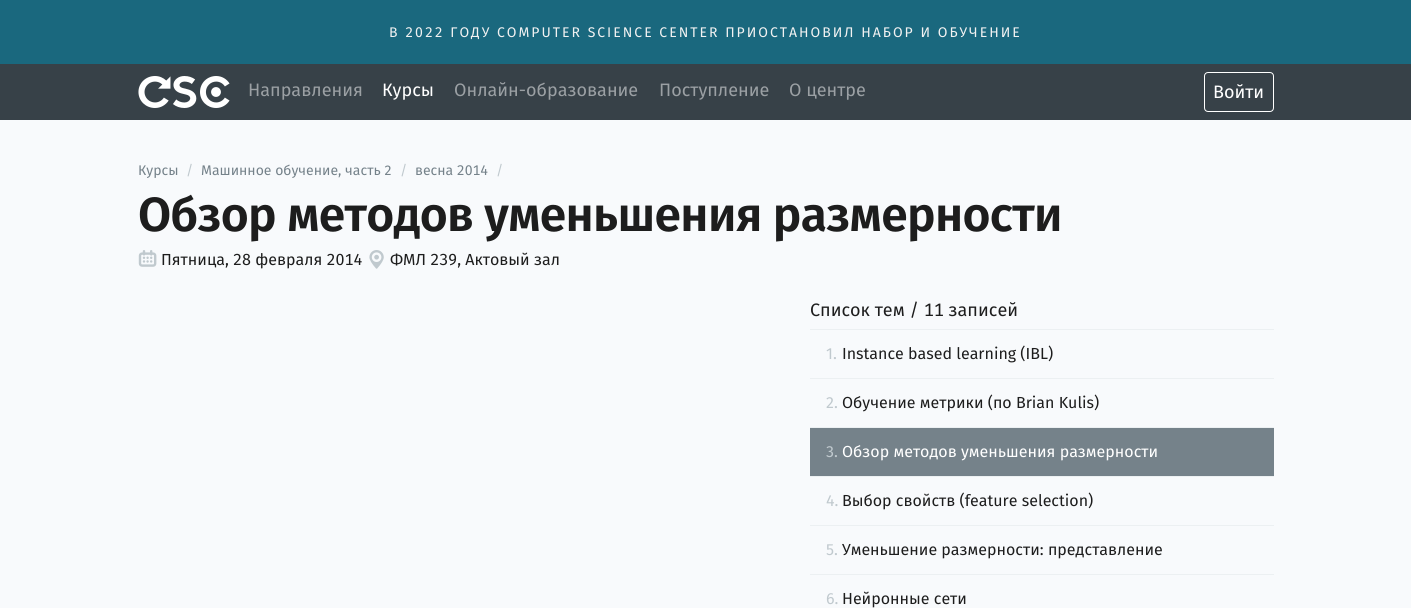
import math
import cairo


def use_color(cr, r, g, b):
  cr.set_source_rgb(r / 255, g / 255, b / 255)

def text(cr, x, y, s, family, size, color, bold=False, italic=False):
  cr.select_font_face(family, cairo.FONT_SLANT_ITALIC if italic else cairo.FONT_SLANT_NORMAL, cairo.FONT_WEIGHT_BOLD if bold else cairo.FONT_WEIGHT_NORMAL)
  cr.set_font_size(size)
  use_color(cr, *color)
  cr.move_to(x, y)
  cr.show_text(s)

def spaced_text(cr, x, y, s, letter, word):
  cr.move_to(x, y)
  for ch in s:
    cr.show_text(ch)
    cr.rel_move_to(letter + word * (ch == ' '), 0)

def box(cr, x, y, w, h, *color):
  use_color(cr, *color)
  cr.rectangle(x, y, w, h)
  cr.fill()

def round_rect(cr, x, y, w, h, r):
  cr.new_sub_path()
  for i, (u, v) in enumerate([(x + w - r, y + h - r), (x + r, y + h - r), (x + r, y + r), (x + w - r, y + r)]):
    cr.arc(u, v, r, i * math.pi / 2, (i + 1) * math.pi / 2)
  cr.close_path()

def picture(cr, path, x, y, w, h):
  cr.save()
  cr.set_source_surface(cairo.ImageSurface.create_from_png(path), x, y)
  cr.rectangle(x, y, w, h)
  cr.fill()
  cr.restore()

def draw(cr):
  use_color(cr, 248, 250, 252)
  cr.paint()
  box(cr, 0, 0, 1411, 64, 26, 104, 126)
  box(cr, 0, 64, 1411, 56, 55, 65, 72)
  picture(cr, "img_01.png", 138, 76, 92, 32)
  round_rect(cr, 1204.5, 72.5, 69, 39, 3.5)
  use_color(cr, 255, 255, 255)
  cr.set_line_width(1)
  cr.stroke()
  picture(cr, "img_02.png", 138, 250, 19, 17)
  picture(cr, "img_03.png", 369, 250, 15, 19)
  box(cr, 810, 329, 464, 1, 236, 240, 242)
  box(cr, 810, 378, 464, 1, 236, 240, 242)
  box(cr, 810, 428, 464, 48, 117, 130, 138)
  box(cr, 810, 427, 464, 1, 236, 240, 242)
  box(cr, 810, 476, 464, 1, 236, 240, 242)
  box(cr, 810, 525, 464, 1, 236, 240, 242)
  box(cr, 810, 574, 464, 1, 236, 240, 242)
  cr.select_font_face("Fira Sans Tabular")
  cr.set_font_size(14)
  use_color(cr, 242, 242, 242)
  spaced_text(cr, 389, 37, "В 2022 ГОДУ COMPUTER SCIENCE CENTER ПРИОСТАНОВИЛ НАБОР И ОБУЧЕНИЕ", 2, 0)
  text(cr, 248, 96, "Направления", "Fira Sans", 18, (155, 160, 164))
  text(cr, 382, 96, "Курсы", "Fira Sans", 18, (255, 255, 255))
  text(cr, 454, 96, "Онлайн-образование", "Fira Sans", 18, (155, 160, 164))
  text(cr, 659, 96, "Поступление", "Fira Sans", 18, (155, 160, 164))
  text(cr, 789, 96, "О центре", "Fira Sans", 18, (155, 160, 164))
  text(cr, 1213, 98, "Войти", "Fira Sans", 18, (255, 255, 255))
  text(cr, 138, 175, "Курсы", "Fira Sans", 14, (117, 130, 138))
  text(cr, 186, 175, "/", "Fira Sans", 14, (192, 201, 206))
  text(cr, 201, 175, "Машинное обучение, часть 2", "Fira Sans", 14, (117, 130, 138))
  text(cr, 400, 175, "/", "Fira Sans", 14, (192, 201, 206))
  text(cr, 415, 175, "весна 2014", "Fira Sans Tabular", 14, (117, 130, 138))
  text(cr, 496, 175, "/", "Fira Sans", 14, (192, 201, 206))
  cr.select_font_face("Fira Sans SemiBold")
  cr.set_font_size(48)
  use_color(cr, 29, 29, 29)
  spaced_text(cr, 138, 231, "Обзор методов уменьшения размерности", -0.65, 0)
  text(cr, 161, 265, "Пятница, 28 февраля 2014", "Fira Sans Tabular", 16, (29, 29, 29))
  text(cr, 390, 265, "ФМЛ 239, Актовый зал", "Fira Sans Tabular", 16, (29, 29, 29))
  text(cr, 810, 316, "Список тем / 11 записей", "Fira Sans Tabular", 18, (29, 29, 29))
  text(cr, 826, 359, "1.", "Fira Sans", 16, (192, 201, 206))
  text(cr, 842, 359, "Instance based learning (IBL)", "Fira Sans", 16, (29, 29, 29))
  text(cr, 826, 408, "2.", "Fira Sans", 16, (192, 201, 206))
  text(cr, 842, 408, "Обучение метрики (по Brian Kulis)", "Fira Sans", 16, (29, 29, 29))
  text(cr, 826, 457, "3.", "Fira Sans", 16, (192, 201, 206))
  text(cr, 842, 457, "Обзор методов уменьшения размерности", "Fira Sans", 16, (255, 255, 255))
  text(cr, 826, 506, "4.", "Fira Sans", 16, (192, 201, 206))
  text(cr, 842, 506, "Выбор свойств (feature selection)", "Fira Sans", 16, (29, 29, 29))
  text(cr, 826, 555, "5.", "Fira Sans", 16, (192, 201, 206))
  text(cr, 842, 555, "Уменьшение размерности: представление", "Fira Sans", 16, (29, 29, 29))
  text(cr, 826, 604, "6.", "Fira Sans", 16, (192, 201, 206))
  text(cr, 842, 604, "Нейронные сети", "Fira Sans", 16, (29, 29, 29))


surface = cairo.ImageSurface(cairo.FORMAT_RGB24, 1411, 608)
cr = cairo.Context(surface)
options = cairo.FontOptions()
options.set_hint_metrics(cairo.HINT_METRICS_OFF)
options.set_hint_style(cairo.HINT_STYLE_NONE)
cr.set_font_options(options)
cr.set_miter_limit(4)
draw(cr)
surface.write_to_png("out.png")
